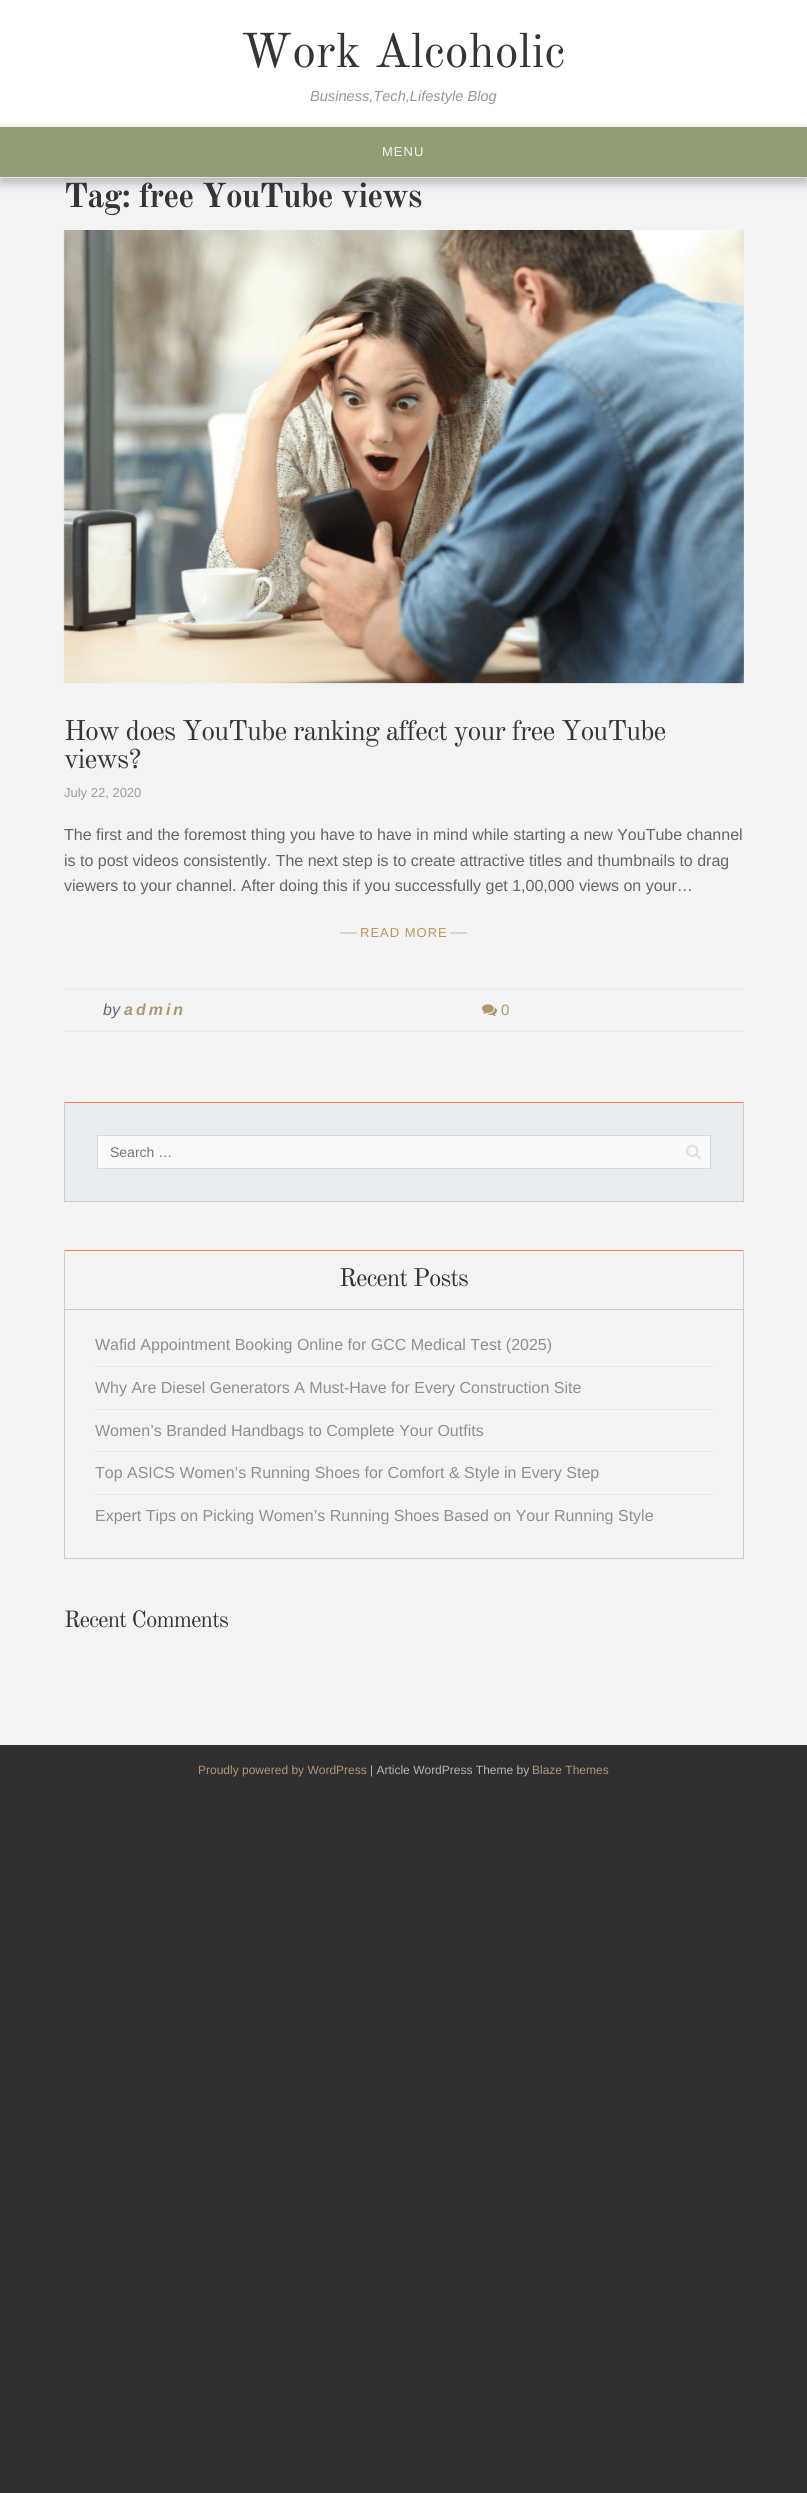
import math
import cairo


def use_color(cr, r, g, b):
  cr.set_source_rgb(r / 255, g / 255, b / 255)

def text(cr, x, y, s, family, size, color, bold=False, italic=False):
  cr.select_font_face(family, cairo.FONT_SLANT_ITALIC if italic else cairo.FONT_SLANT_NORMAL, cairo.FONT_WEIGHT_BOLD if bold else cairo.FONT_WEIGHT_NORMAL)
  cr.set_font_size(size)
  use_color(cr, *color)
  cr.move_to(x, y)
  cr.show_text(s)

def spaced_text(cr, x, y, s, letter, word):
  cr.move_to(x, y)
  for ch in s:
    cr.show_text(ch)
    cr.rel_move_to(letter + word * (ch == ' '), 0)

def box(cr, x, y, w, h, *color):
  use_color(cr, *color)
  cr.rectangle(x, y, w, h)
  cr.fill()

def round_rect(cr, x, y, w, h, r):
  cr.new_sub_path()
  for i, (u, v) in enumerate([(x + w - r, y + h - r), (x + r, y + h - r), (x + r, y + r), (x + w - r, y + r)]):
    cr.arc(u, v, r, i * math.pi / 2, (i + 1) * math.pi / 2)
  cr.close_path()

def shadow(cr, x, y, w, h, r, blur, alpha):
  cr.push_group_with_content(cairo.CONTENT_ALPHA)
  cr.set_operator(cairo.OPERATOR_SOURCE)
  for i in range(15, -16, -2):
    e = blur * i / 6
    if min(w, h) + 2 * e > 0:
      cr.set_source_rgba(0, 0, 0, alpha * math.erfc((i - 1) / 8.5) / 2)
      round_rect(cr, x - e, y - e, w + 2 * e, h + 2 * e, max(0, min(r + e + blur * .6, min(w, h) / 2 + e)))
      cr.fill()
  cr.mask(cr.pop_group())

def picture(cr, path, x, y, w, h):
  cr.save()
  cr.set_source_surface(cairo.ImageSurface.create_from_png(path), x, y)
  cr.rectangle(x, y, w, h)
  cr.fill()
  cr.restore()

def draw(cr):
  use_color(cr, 48, 48, 48)
  cr.paint()
  box(cr, 0, 178, 807, 1567, 243, 243, 243)
  box(cr, 0, 0, 807, 126, 255, 255, 255)
  use_color(cr, 0, 0, 0)
  shadow(cr, 0, 131, 807, 52, 0, 5, 0.25)
  box(cr, 0, 126, 807, 1, 239, 239, 239)
  box(cr, 0, 177, 807, 1, 229, 229, 229)
  box(cr, 0, 127, 807, 50, 145, 157, 116)
  picture(cr, "img_01.png", 63, 230, 681, 454)
  box(cr, 340, 932, 17, 2, 214, 214, 214)
  box(cr, 450, 932, 17, 2, 214, 214, 214)
  box(cr, 64, 988, 680, 2, 235, 235, 235)
  box(cr, 64, 1030, 680, 2, 235, 235, 235)
  picture(cr, "img_02.png", 482, 1004, 15, 12)
  box(cr, 64, 1102, 680, 1, 255, 127, 80)
  box(cr, 743, 1102, 1, 100, 209, 202, 202)
  box(cr, 64, 1201, 680, 1, 209, 202, 202)
  box(cr, 64, 1102, 1, 100, 209, 202, 202)
  box(cr, 65, 1103, 678, 98, 233, 236, 239)
  use_color(cr, 249, 249, 249)
  cr.rectangle(97.5, 1135.5, 613, 33)
  cr.fill_preserve()
  use_color(cr, 217, 217, 217)
  cr.set_line_width(1)
  cr.stroke()
  picture(cr, "img_03.png", 686, 1144, 15, 16)
  box(cr, 64, 1250, 680, 1, 255, 127, 80)
  box(cr, 743, 1250, 1, 309, 209, 202, 202)
  box(cr, 64, 1558, 680, 1, 209, 202, 202)
  box(cr, 64, 1250, 1, 309, 209, 202, 202)
  box(cr, 65, 1309, 678, 1, 208, 200, 200)
  box(cr, 95, 1366, 618, 1, 230, 230, 230)
  box(cr, 95, 1409, 618, 1, 230, 230, 230)
  box(cr, 95, 1451, 618, 1, 230, 230, 230)
  box(cr, 95, 1494, 618, 1, 230, 230, 230)
  text(cr, 241, 67, "Work Alcoholic", "Old Standard TT", 48, (53, 53, 53))
  text(cr, 310, 101, "Business,Tech,Lifestyle Blog", "Liberation Sans", 14.6, (150, 150, 150), italic=True)
  cr.select_font_face("Liberation Sans")
  cr.set_font_size(13)
  use_color(cr, 243, 243, 243)
  spaced_text(cr, 382, 156, "MENU", 1, 0)
  cr.select_font_face("Old Standard TT", cairo.FONT_SLANT_NORMAL, cairo.FONT_WEIGHT_BOLD)
  cr.set_font_size(34)
  use_color(cr, 53, 53, 53)
  spaced_text(cr, 64, 207, "Tag: free YouTube views", -1, 0)
  cr.select_font_face("Old Standard TT")
  cr.set_font_size(28)
  spaced_text(cr, 64, 740, "How does YouTube ranking affect your free YouTube", -1, 0)
  spaced_text(cr, 64, 768, "views?", -1, 0)
  text(cr, 64, 797, "July 22, 2020", "Liberation Sans", 13, (158, 158, 158))
  text(cr, 64, 840, "The first and the foremost thing you have to have in mind while starting a new YouTube channel", "Liberation Sans", 16, (101, 101, 101))
  text(cr, 64, 866, "is to post videos consistently. The next step is to create attractive titles and thumbnails to drag", "Liberation Sans", 16, (101, 101, 101))
  text(cr, 64, 891, "viewers to your channel. After doing this if you successfully get 1,00,000 views on your…", "Liberation Sans", 16, (101, 101, 101))
  cr.set_font_size(13)
  use_color(cr, 190, 150, 86)
  spaced_text(cr, 360, 937, "READ MORE", 1, 0)
  text(cr, 103, 1015, "by", "Liberation Sans", 16, (101, 101, 101), italic=True)
  cr.select_font_face("Liberation Sans", cairo.FONT_SLANT_ITALIC, cairo.FONT_WEIGHT_BOLD)
  use_color(cr, 175, 152, 112)
  spaced_text(cr, 124, 1015, "admin", 3, 0)
  text(cr, 501, 1015, "0", "Liberation Sans", 15, (175, 152, 112))
  text(cr, 110, 1157, "Search …", "Liberation Sans", 14, (117, 117, 117))
  cr.select_font_face("Old Standard TT")
  cr.set_font_size(25)
  use_color(cr, 53, 53, 53)
  spaced_text(cr, 339, 1286, "Recent Posts", -1, 0)
  text(cr, 95, 1350, "Wafid Appointment Booking Online for GCC Medical Test (2025)", "Liberation Sans", 16, (144, 144, 144))
  text(cr, 95, 1393, "Why Are Diesel Generators A Must-Have for Every Construction Site", "Liberation Sans", 16, (144, 144, 144))
  text(cr, 95, 1436, "Women’s Branded Handbags to Complete Your Outfits", "Liberation Sans", 16, (144, 144, 144))
  text(cr, 95, 1478, "Top ASICS Women’s Running Shoes for Comfort & Style in Every Step", "Liberation Sans", 16, (144, 144, 144))
  text(cr, 95, 1521, "Expert Tips on Picking Women’s Running Shoes Based on Your Running Style", "Liberation Sans", 16, (144, 144, 144))
  cr.select_font_face("Old Standard TT")
  cr.set_font_size(23)
  use_color(cr, 53, 53, 53)
  spaced_text(cr, 64, 1627, "Recent Comments", -1, 0)
  text(cr, 198, 1774, "Proudly powered by WordPress", "Liberation Sans", 12, (175, 152, 112))
  text(cr, 370, 1774, "| Article WordPress Theme by", "Liberation Sans", 12, (181, 181, 181))
  text(cr, 532, 1774, "Blaze Themes", "Liberation Sans", 12, (175, 152, 112))


surface = cairo.ImageSurface(cairo.FORMAT_RGB24, 807, 2493)
cr = cairo.Context(surface)
options = cairo.FontOptions()
options.set_hint_metrics(cairo.HINT_METRICS_OFF)
options.set_hint_style(cairo.HINT_STYLE_NONE)
cr.set_font_options(options)
cr.set_miter_limit(4)
draw(cr)
surface.write_to_png("out.png")
